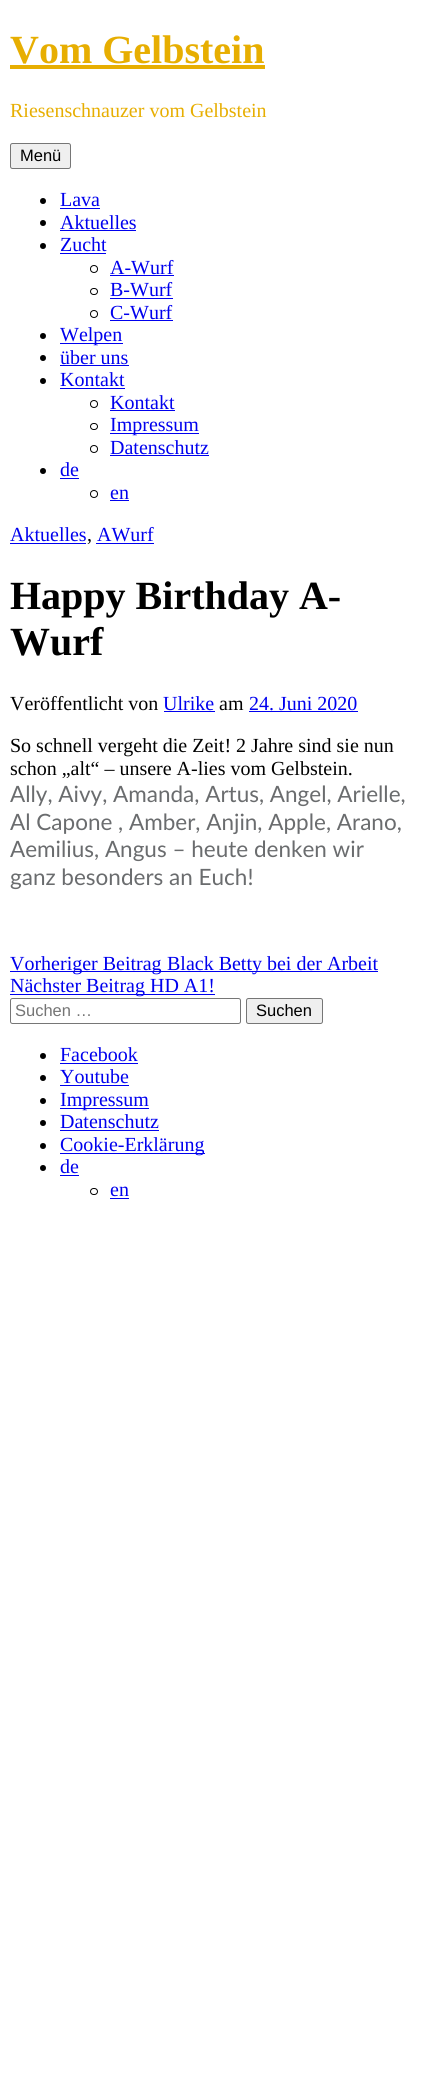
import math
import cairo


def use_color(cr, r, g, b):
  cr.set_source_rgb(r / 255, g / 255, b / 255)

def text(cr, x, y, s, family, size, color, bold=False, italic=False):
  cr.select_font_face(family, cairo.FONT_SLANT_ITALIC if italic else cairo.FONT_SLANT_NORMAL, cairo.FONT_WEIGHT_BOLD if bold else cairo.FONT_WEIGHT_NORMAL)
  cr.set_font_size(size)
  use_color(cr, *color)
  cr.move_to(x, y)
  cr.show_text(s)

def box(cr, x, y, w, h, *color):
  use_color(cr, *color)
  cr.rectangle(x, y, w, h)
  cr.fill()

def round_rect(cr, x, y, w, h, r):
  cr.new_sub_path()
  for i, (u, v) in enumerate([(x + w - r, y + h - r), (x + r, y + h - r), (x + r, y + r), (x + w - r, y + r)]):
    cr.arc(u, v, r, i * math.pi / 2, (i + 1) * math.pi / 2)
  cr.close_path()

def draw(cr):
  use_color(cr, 255, 255, 255)
  cr.paint()
  box(cr, 10, 65, 255, 4, 231, 174, 1)
  use_color(cr, 239, 239, 239)
  round_rect(cr, 10.5, 143.5, 60, 25, 2)
  cr.fill_preserve()
  use_color(cr, 118, 118, 118)
  cr.set_line_width(1)
  cr.stroke()
  use_color(cr, 0, 0, 0)
  cr.arc(43, 201, 3, 0, 2 * math.pi)
  cr.fill()
  box(cr, 60, 208, 40, 1, 0, 0, 238)
  use_color(cr, 0, 0, 0)
  cr.arc(43, 223, 3, 0, 2 * math.pi)
  cr.fill()
  box(cr, 60, 230, 76, 1, 0, 0, 238)
  use_color(cr, 0, 0, 0)
  cr.arc(43, 246, 3, 0, 2 * math.pi)
  cr.fill()
  box(cr, 60, 253, 46, 1, 0, 0, 238)
  cr.arc(94, 269, 3.5, 0, 2 * math.pi)
  use_color(cr, 0, 0, 0)
  cr.stroke()
  box(cr, 110, 275, 64, 1, 0, 0, 238)
  round_rect(cr, 90.5, 288.5, 7, 6, 3)
  use_color(cr, 0, 0, 0)
  cr.stroke()
  box(cr, 110, 298, 63, 1, 0, 0, 238)
  cr.arc(94, 314, 3.5, 0, 2 * math.pi)
  use_color(cr, 0, 0, 0)
  cr.stroke()
  box(cr, 110, 320, 63, 1, 0, 0, 238)
  use_color(cr, 0, 0, 0)
  cr.arc(43, 336, 3, 0, 2 * math.pi)
  cr.fill()
  box(cr, 60, 343, 63, 1, 0, 0, 238)
  use_color(cr, 0, 0, 0)
  cr.arc(43, 358, 3, 0, 2 * math.pi)
  cr.fill()
  box(cr, 60, 365, 69, 1, 0, 0, 238)
  use_color(cr, 0, 0, 0)
  cr.arc(43, 381, 3, 0, 2 * math.pi)
  cr.fill()
  box(cr, 60, 388, 65, 1, 0, 0, 238)
  cr.arc(94, 404, 3.5, 0, 2 * math.pi)
  use_color(cr, 0, 0, 0)
  cr.stroke()
  box(cr, 110, 410, 65, 1, 0, 0, 238)
  round_rect(cr, 90.5, 423.5, 7, 6, 3)
  use_color(cr, 0, 0, 0)
  cr.stroke()
  box(cr, 110, 433, 89, 1, 0, 0, 238)
  cr.arc(94, 449, 3.5, 0, 2 * math.pi)
  use_color(cr, 0, 0, 0)
  cr.stroke()
  box(cr, 110, 455, 99, 1, 0, 0, 238)
  use_color(cr, 0, 0, 0)
  cr.arc(43, 471, 3, 0, 2 * math.pi)
  cr.fill()
  box(cr, 60, 478, 19, 1, 0, 0, 238)
  cr.arc(94, 494, 3.5, 0, 2 * math.pi)
  use_color(cr, 0, 0, 0)
  cr.stroke()
  box(cr, 110, 500, 19, 1, 0, 0, 238)
  box(cr, 10, 543, 76, 1, 0, 0, 238)
  box(cr, 96, 543, 58, 1, 0, 0, 238)
  box(cr, 164, 711, 51, 1, 0, 0, 238)
  box(cr, 249, 711, 109, 1, 0, 0, 238)
  box(cr, 10, 971, 151, 1, 0, 0, 238)
  box(cr, 161, 971, 217, 1, 0, 0, 238)
  box(cr, 10, 994, 205, 1, 0, 0, 238)
  round_rect(cr, 10.5, 998.5, 230, 25, 2)
  use_color(cr, 118, 118, 118)
  cr.stroke()
  use_color(cr, 239, 239, 239)
  round_rect(cr, 246.5, 998.5, 76, 25, 2)
  cr.fill_preserve()
  use_color(cr, 118, 118, 118)
  cr.stroke()
  use_color(cr, 0, 0, 0)
  cr.arc(43, 1056, 3, 0, 2 * math.pi)
  cr.fill()
  box(cr, 60, 1063, 78, 1, 0, 0, 238)
  use_color(cr, 0, 0, 0)
  cr.arc(43, 1078, 3, 0, 2 * math.pi)
  cr.fill()
  box(cr, 60, 1085, 69, 1, 0, 0, 238)
  use_color(cr, 0, 0, 0)
  cr.arc(43, 1101, 3, 0, 2 * math.pi)
  cr.fill()
  box(cr, 60, 1108, 89, 1, 0, 0, 238)
  use_color(cr, 0, 0, 0)
  cr.arc(43, 1123, 3, 0, 2 * math.pi)
  cr.fill()
  box(cr, 60, 1130, 99, 1, 0, 0, 238)
  use_color(cr, 0, 0, 0)
  cr.arc(43, 1146, 3, 0, 2 * math.pi)
  cr.fill()
  box(cr, 60, 1153, 145, 1, 0, 0, 238)
  use_color(cr, 0, 0, 0)
  cr.arc(43, 1168, 3, 0, 2 * math.pi)
  cr.fill()
  box(cr, 60, 1175, 19, 1, 0, 0, 238)
  round_rect(cr, 90.5, 1188.5, 7, 6, 3)
  use_color(cr, 0, 0, 0)
  cr.stroke()
  box(cr, 110, 1198, 19, 1, 0, 0, 238)
  text(cr, 10, 63, "Vom Gelbstein", "Liberation Serif", 40, (231, 174, 1), bold=True)
  text(cr, 10, 117, "Riesenschnauzer vom Gelbstein", "Liberation Serif", 20, (231, 174, 1))
  text(cr, 20, 161, "Menü", "Liberation Sans", 16.5, (0, 0, 0))
  text(cr, 60, 206, "Lava", "Liberation Serif", 20, (0, 0, 238))
  text(cr, 60, 229, "Aktuelles", "Liberation Serif", 20, (0, 0, 238))
  text(cr, 60, 251, "Zucht", "Liberation Serif", 20, (0, 0, 238))
  text(cr, 110, 274, "A-Wurf", "Liberation Serif", 20, (0, 0, 238))
  text(cr, 110, 296, "B-Wurf", "Liberation Serif", 20, (0, 0, 238))
  text(cr, 110, 319, "C-Wurf", "Liberation Serif", 20, (0, 0, 238))
  text(cr, 60, 341, "Welpen", "Liberation Serif", 20, (0, 0, 238))
  text(cr, 60, 364, "über uns", "Liberation Serif", 20, (0, 0, 238))
  text(cr, 60, 386, "Kontakt", "Liberation Serif", 20, (0, 0, 238))
  text(cr, 110, 409, "Kontakt", "Liberation Serif", 20, (0, 0, 238))
  text(cr, 110, 431, "Impressum", "Liberation Serif", 20, (0, 0, 238))
  text(cr, 110, 454, "Datenschutz", "Liberation Serif", 20, (0, 0, 238))
  text(cr, 60, 476, "de", "Liberation Serif", 20, (0, 0, 238))
  text(cr, 110, 499, "en", "Liberation Serif", 20, (0, 0, 238))
  text(cr, 10, 541, "Aktuelles", "Liberation Serif", 20, (0, 0, 238))
  text(cr, 87, 541, ",", "Liberation Serif", 20, (0, 0, 0))
  text(cr, 97, 541, "AWurf", "Liberation Serif", 20, (0, 0, 238))
  text(cr, 10, 609, "Happy Birthday A-", "Liberation Serif", 40, (0, 0, 0), bold=True)
  text(cr, 10, 655, "Wurf", "Liberation Serif", 40, (0, 0, 0), bold=True)
  text(cr, 10, 710, "Veröffentlicht von", "Liberation Serif", 20, (0, 0, 0))
  text(cr, 163, 710, "Ulrike", "Liberation Serif", 20, (0, 0, 238))
  text(cr, 219, 710, "am", "Liberation Serif", 20, (0, 0, 0))
  text(cr, 249, 710, "24. Juni 2020", "Liberation Serif", 20, (0, 0, 238))
  text(cr, 10, 752, "So schnell vergeht die Zeit! 2 Jahre sind sie nun", "Liberation Serif", 20, (0, 0, 0))
  text(cr, 10, 775, "schon „alt“ – unsere A-lies vom Gelbstein.", "Liberation Serif", 20, (0, 0, 0))
  text(cr, 10, 802, "Ally, Aivy, Amanda, Artus, Angel, Arielle,", "Lato", 22.5, (106, 108, 110))
  text(cr, 10, 830, "Al Capone , Amber, Anjin, Apple, Arano,", "Lato", 22.5, (106, 108, 110))
  text(cr, 10, 857, "Aemilius, Angus – heute denken wir", "Lato", 22.5, (106, 108, 110))
  text(cr, 10, 885, "ganz besonders an Euch!", "Lato", 22.5, (106, 108, 110))
  text(cr, 10, 970, "Vorheriger Beitrag", "Liberation Serif", 20, (0, 0, 238))
  text(cr, 167, 970, "Black Betty bei der Arbeit", "Liberation Serif", 20, (0, 0, 238))
  text(cr, 10, 992, "Nächster Beitrag HD A1!", "Liberation Serif", 20, (0, 0, 238))
  text(cr, 15, 1016, "Suchen …", "Liberation Sans", 16.5, (117, 117, 117))
  text(cr, 256, 1016, "Suchen", "Liberation Sans", 16.5, (0, 0, 0))
  text(cr, 60, 1061, "Facebook", "Liberation Serif", 20, (0, 0, 238))
  text(cr, 60, 1083, "Youtube", "Liberation Serif", 20, (0, 0, 238))
  text(cr, 60, 1106, "Impressum", "Liberation Serif", 20, (0, 0, 238))
  text(cr, 60, 1128, "Datenschutz", "Liberation Serif", 20, (0, 0, 238))
  text(cr, 60, 1151, "Cookie-Erklärung", "Liberation Serif", 20, (0, 0, 238))
  text(cr, 60, 1173, "de", "Liberation Serif", 20, (0, 0, 238))
  text(cr, 110, 1196, "en", "Liberation Serif", 20, (0, 0, 238))


surface = cairo.ImageSurface(cairo.FORMAT_RGB24, 421, 2089)
cr = cairo.Context(surface)
options = cairo.FontOptions()
options.set_hint_metrics(cairo.HINT_METRICS_OFF)
options.set_hint_style(cairo.HINT_STYLE_NONE)
cr.set_font_options(options)
cr.set_miter_limit(4)
draw(cr)
surface.write_to_png("out.png")
